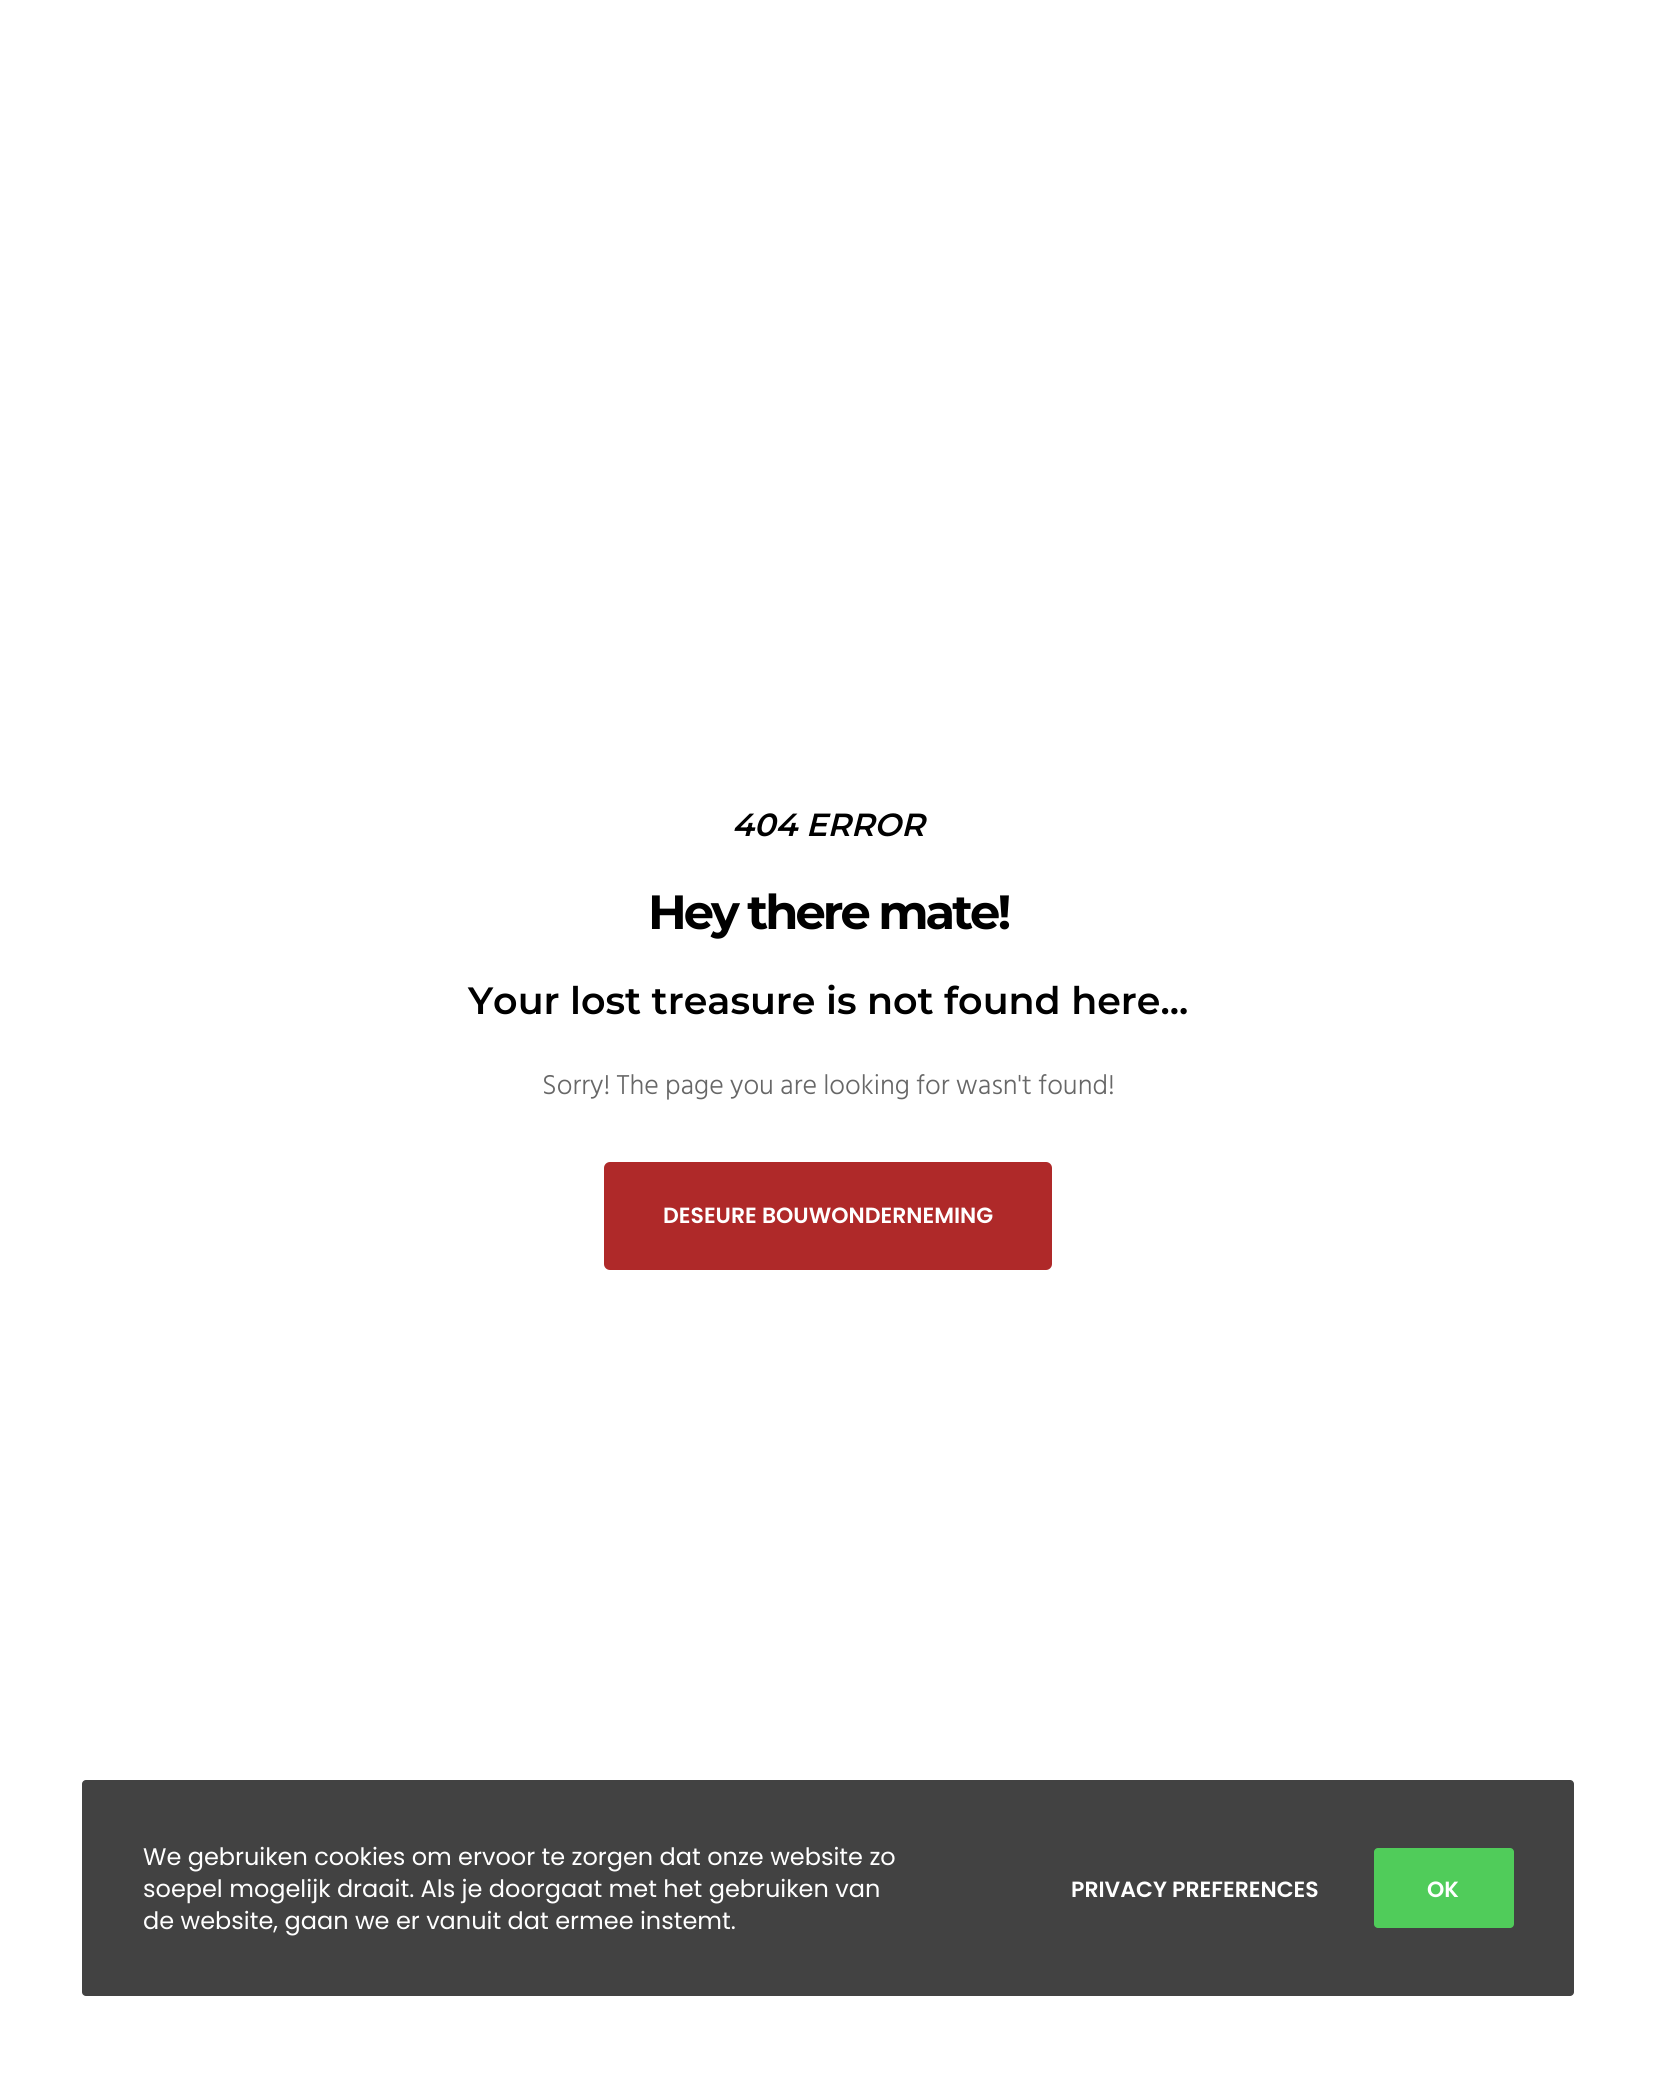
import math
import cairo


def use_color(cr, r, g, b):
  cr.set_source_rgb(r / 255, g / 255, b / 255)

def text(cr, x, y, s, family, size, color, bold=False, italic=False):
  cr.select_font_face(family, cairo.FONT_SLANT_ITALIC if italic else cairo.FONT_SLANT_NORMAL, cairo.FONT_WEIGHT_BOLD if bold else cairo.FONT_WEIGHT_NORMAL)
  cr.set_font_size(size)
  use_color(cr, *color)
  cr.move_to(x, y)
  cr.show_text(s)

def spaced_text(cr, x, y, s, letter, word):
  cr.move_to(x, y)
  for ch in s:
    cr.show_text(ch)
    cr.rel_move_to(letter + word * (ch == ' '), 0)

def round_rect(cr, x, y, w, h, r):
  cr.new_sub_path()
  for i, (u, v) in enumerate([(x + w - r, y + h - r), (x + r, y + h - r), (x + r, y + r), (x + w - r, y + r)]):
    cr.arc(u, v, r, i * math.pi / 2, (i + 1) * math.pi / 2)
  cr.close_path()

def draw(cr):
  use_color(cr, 255, 255, 255)
  cr.paint()
  use_color(cr, 175, 41, 41)
  round_rect(cr, 605, 1163, 446, 106, 5)
  cr.fill_preserve()
  cr.stroke()
  use_color(cr, 66, 66, 66)
  round_rect(cr, 82, 1780, 1492, 216, 4)
  cr.fill()
  use_color(cr, 80, 204, 90)
  round_rect(cr, 1374, 1848, 140, 80, 4)
  cr.fill()
  text(cr, 732, 836, "404 ERROR", "Montserrat SemiBold", 32, (0, 0, 0), italic=True)
  cr.select_font_face("Montserrat", cairo.FONT_SLANT_NORMAL, cairo.FONT_WEIGHT_BOLD)
  cr.set_font_size(48)
  spaced_text(cr, 648, 929, "Hey there mate!", -3, 0)
  text(cr, 468, 1014, "Your lost treasure is not found here...", "Montserrat SemiBold", 38, (0, 0, 0))
  text(cr, 542, 1094, "Sorry! The page you are looking for wasn't found!", "Hind Siliguri Light", 28, (103, 103, 103))
  text(cr, 663, 1223, "DESEURE BOUWONDERNEMING", "Poppins SemiBold", 22, (255, 255, 255))
  text(cr, 143, 1865, "We gebruiken cookies om ervoor te zorgen dat onze website zo", "Poppins", 24, (255, 255, 255))
  text(cr, 143, 1897, "soepel mogelijk draait. Als je doorgaat met het gebruiken van", "Poppins", 24, (255, 255, 255))
  text(cr, 143, 1929, "de website, gaan we er vanuit dat ermee instemt.", "Poppins", 24, (255, 255, 255))
  text(cr, 1071, 1897, "PRIVACY PREFERENCES", "Poppins SemiBold", 22, (255, 255, 255))
  text(cr, 1427, 1897, "OK", "Poppins SemiBold", 22, (255, 255, 255))


surface = cairo.ImageSurface(cairo.FORMAT_RGB24, 1656, 2079)
cr = cairo.Context(surface)
options = cairo.FontOptions()
options.set_hint_metrics(cairo.HINT_METRICS_OFF)
options.set_hint_style(cairo.HINT_STYLE_NONE)
cr.set_font_options(options)
cr.set_miter_limit(4)
draw(cr)
surface.write_to_png("out.png")
